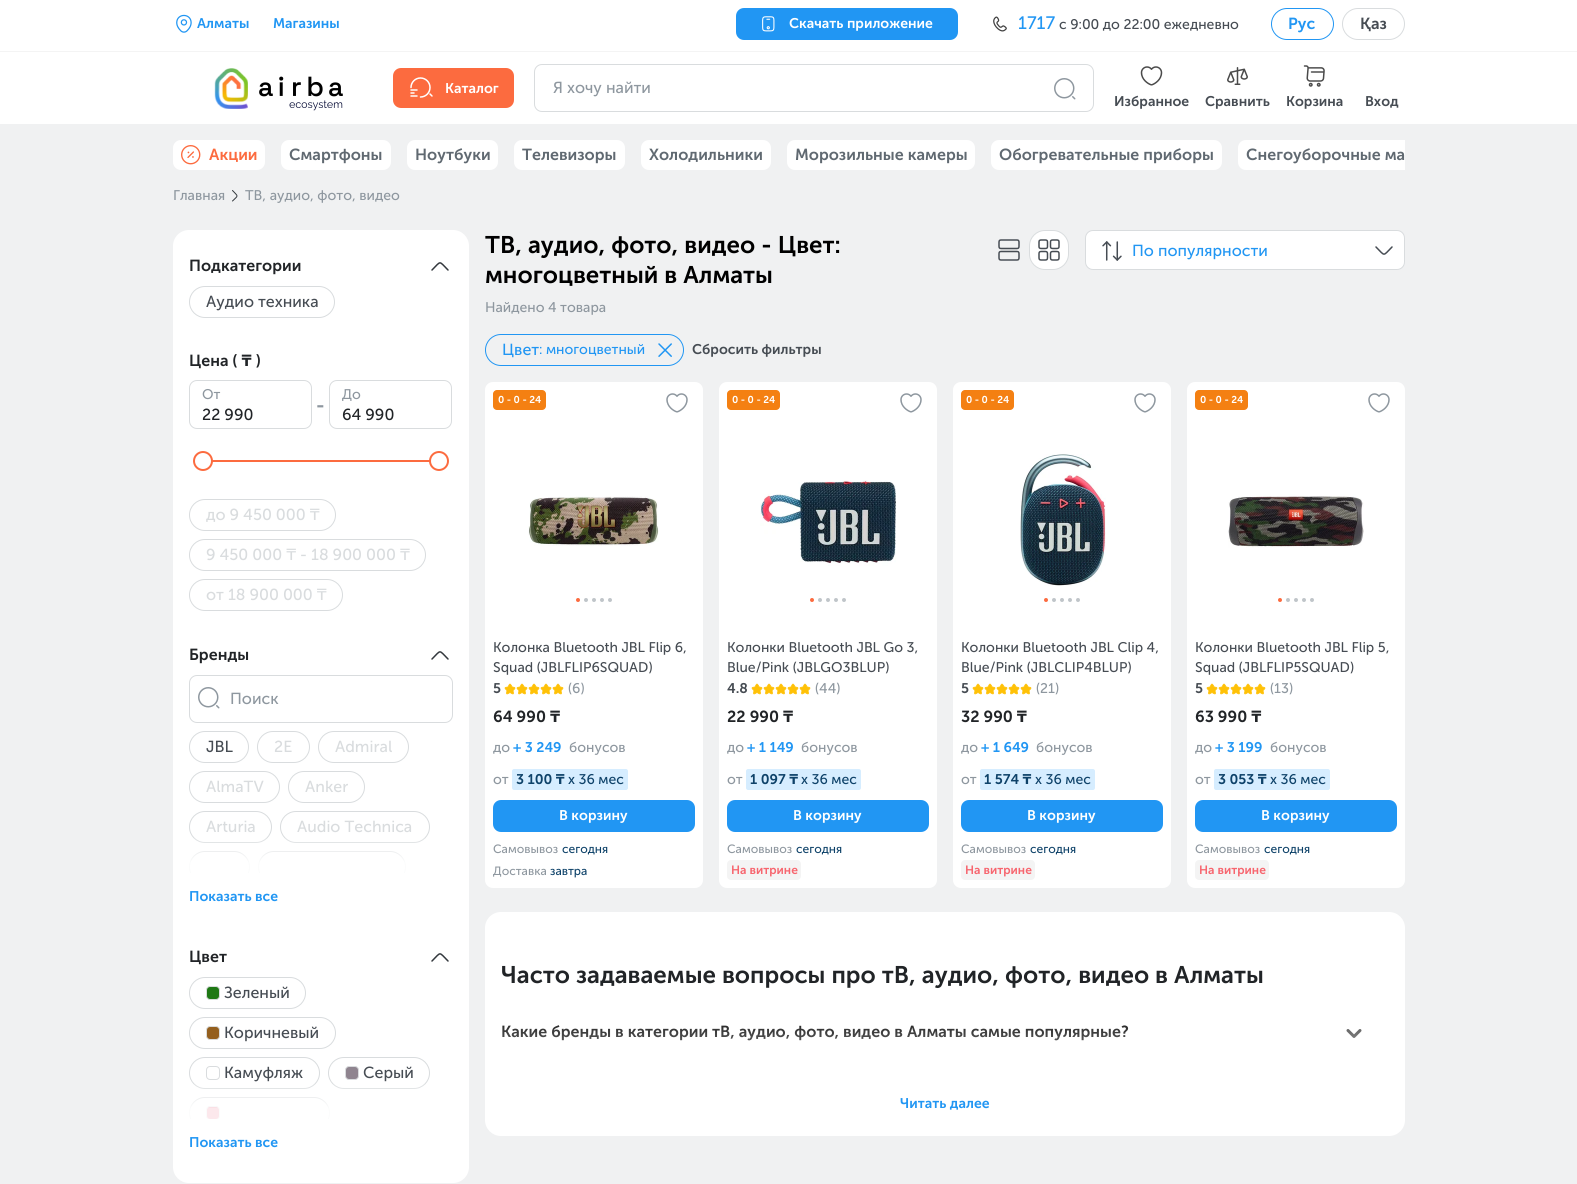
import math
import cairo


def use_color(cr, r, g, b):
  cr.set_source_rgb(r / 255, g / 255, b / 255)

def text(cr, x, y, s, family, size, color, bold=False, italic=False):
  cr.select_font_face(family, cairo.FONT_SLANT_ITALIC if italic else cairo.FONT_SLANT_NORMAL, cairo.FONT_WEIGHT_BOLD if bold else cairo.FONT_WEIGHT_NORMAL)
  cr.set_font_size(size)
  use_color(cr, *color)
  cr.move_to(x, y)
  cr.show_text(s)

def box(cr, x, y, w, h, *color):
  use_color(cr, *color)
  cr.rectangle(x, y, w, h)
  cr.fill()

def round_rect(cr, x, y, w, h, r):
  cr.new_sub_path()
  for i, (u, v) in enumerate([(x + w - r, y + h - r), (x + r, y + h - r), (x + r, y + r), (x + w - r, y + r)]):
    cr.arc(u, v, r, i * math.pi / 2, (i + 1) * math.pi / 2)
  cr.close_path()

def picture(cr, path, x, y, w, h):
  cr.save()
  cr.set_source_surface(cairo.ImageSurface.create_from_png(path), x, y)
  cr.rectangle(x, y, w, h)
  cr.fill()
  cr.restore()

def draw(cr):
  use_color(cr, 240, 241, 242)
  cr.paint()
  box(cr, 0, 0, 1577, 51, 255, 255, 255)
  box(cr, 0, 51, 1577, 1, 244, 244, 244)
  picture(cr, "img_01.png", 176, 14, 16, 19)
  use_color(cr, 33, 150, 243)
  round_rect(cr, 736, 8, 222, 32, 8)
  cr.fill()
  picture(cr, "img_02.png", 762, 16, 13, 16)
  picture(cr, "img_03.png", 993, 16, 14, 16)
  round_rect(cr, 1271.5, 8.5, 62, 31, 15.5)
  cr.set_line_width(1)
  cr.stroke()
  round_rect(cr, 1342.5, 8.5, 62, 31, 15.5)
  use_color(cr, 217, 220, 222)
  cr.stroke()
  box(cr, 0, 52, 1577, 72, 255, 255, 255)
  picture(cr, "img_04.png", 214, 68, 34, 41)
  picture(cr, "img_05.png", 259, 82, 14, 15)
  picture(cr, "img_06.png", 279, 76, 5, 20)
  picture(cr, "img_07.png", 293, 82, 8, 14)
  picture(cr, "img_08.png", 308, 76, 15, 21)
  picture(cr, "img_05.png", 329, 82, 14, 15)
  picture(cr, "img_09.png", 289, 100, 54, 11)
  use_color(cr, 252, 107, 63)
  round_rect(cr, 393, 68, 121, 40, 8)
  cr.fill()
  picture(cr, "img_10.png", 410, 77, 23, 21)
  round_rect(cr, 534.5, 64.5, 559, 47, 7.5)
  use_color(cr, 217, 220, 222)
  cr.stroke()
  picture(cr, "img_11.png", 1054, 78, 22, 22)
  picture(cr, "img_12.png", 1140, 66, 23, 20)
  picture(cr, "img_13.png", 1227, 67, 21, 18)
  picture(cr, "img_14.png", 1303, 65, 22, 22)
  use_color(cr, 255, 255, 255)
  round_rect(cr, 173, 140, 92, 30, 8)
  cr.fill()
  picture(cr, "img_15.png", 181, 145, 20, 20)
  round_rect(cr, 281, 140, 110, 30, 8)
  cr.fill()
  round_rect(cr, 407, 140, 91, 30, 8)
  cr.fill()
  round_rect(cr, 514, 140, 111, 30, 8)
  cr.fill()
  round_rect(cr, 641, 140, 130, 30, 8)
  cr.fill()
  round_rect(cr, 787, 140, 188, 30, 8)
  cr.fill()
  round_rect(cr, 991, 140, 231, 30, 8)
  cr.fill()
  cr.new_path()
  cr.move_to(1246, 140)
  cr.line_to(1405, 140)
  cr.line_to(1405, 170)
  cr.line_to(1246, 170)
  cr.curve_to(1241.5, 170, 1238, 166.5, 1238, 162)
  cr.line_to(1238, 148)
  cr.curve_to(1238, 143.5, 1241.5, 140, 1246, 140)
  cr.close_path()
  cr.fill()
  cr.new_path()
  cr.move_to(232.5, 201)
  cr.curve_to(238.5, 195, 238.5, 197, 232.5, 190.5)
  use_color(cr, 51, 56, 61)
  cr.set_line_cap(cairo.LINE_CAP_ROUND)
  cr.set_line_join(cairo.LINE_JOIN_ROUND)
  cr.stroke()
  use_color(cr, 255, 255, 255)
  round_rect(cr, 173, 230, 296, 953, 16)
  cr.fill()
  cr.new_path()
  cr.move_to(432, 270)
  cr.curve_to(441.5, 260.5, 438.5, 260.5, 448, 270)
  use_color(cr, 51, 56, 61)
  cr.set_line_width(1.5)
  cr.stroke()
  round_rect(cr, 189.5, 286.5, 145, 31, 15.5)
  use_color(cr, 217, 220, 222)
  cr.set_line_width(1)
  cr.set_line_cap(cairo.LINE_CAP_BUTT)
  cr.set_line_join(cairo.LINE_JOIN_MITER)
  cr.stroke()
  round_rect(cr, 189.5, 380.5, 122, 48, 7.5)
  cr.stroke()
  round_rect(cr, 329.5, 380.5, 122, 48, 7.5)
  cr.stroke()
  box(cr, 212, 460, 218, 2, 252, 107, 63)
  use_color(cr, 255, 255, 255)
  cr.arc(203, 461, 9, 0, 2 * math.pi)
  cr.fill_preserve()
  use_color(cr, 252, 107, 63)
  cr.set_line_width(2)
  cr.stroke()
  use_color(cr, 255, 255, 255)
  cr.arc(439, 461, 9, 0, 2 * math.pi)
  cr.fill_preserve()
  use_color(cr, 252, 107, 63)
  cr.stroke()
  round_rect(cr, 189.5, 499.5, 146, 31, 15.5)
  use_color(cr, 217, 220, 222)
  cr.set_line_width(1)
  cr.stroke()
  round_rect(cr, 189.5, 539.5, 236, 31, 15.5)
  cr.stroke()
  round_rect(cr, 189.5, 579.5, 153, 31, 15.5)
  cr.stroke()
  cr.new_path()
  cr.move_to(432, 659)
  cr.curve_to(441.5, 649.5, 438.5, 649.5, 448, 659)
  use_color(cr, 51, 56, 61)
  cr.set_line_width(1.5)
  cr.set_line_cap(cairo.LINE_CAP_ROUND)
  cr.set_line_join(cairo.LINE_JOIN_ROUND)
  cr.stroke()
  round_rect(cr, 189.5, 675.5, 263, 47, 7.5)
  use_color(cr, 217, 220, 222)
  cr.set_line_width(1)
  cr.set_line_cap(cairo.LINE_CAP_BUTT)
  cr.set_line_join(cairo.LINE_JOIN_MITER)
  cr.stroke()
  picture(cr, "img_11.png", 198, 687, 22, 22)
  round_rect(cr, 189.5, 731.5, 59, 31, 15.5)
  cr.stroke()
  round_rect(cr, 257.5, 731.5, 52, 31, 15.5)
  cr.stroke()
  round_rect(cr, 318.5, 731.5, 90, 31, 15.5)
  cr.stroke()
  round_rect(cr, 189.5, 771.5, 90, 31, 15.5)
  cr.stroke()
  round_rect(cr, 288.5, 771.5, 76, 31, 15.5)
  cr.stroke()
  round_rect(cr, 189.5, 811.5, 82, 31, 15.5)
  cr.stroke()
  round_rect(cr, 280.5, 811.5, 149, 31, 15.5)
  cr.stroke()
  cr.save()
  cr.rectangle(189, 723, 264, 150)
  cr.clip()
  round_rect(cr, 189.5, 851.5, 60, 31, 15.5)
  cr.stroke()
  round_rect(cr, 258.5, 851.5, 147, 31, 15.5)
  cr.stroke()
  cr.restore()
  gradient = cairo.LinearGradient(321, 838, 321, 873)
  gradient.add_color_stop_rgba(0, 1, 1, 1, 0.1)
  gradient.add_color_stop_rgba(0.7, 1, 1, 1, 0.9)
  cr.set_source(gradient)
  cr.rectangle(189, 838, 236, 35)
  cr.fill()
  cr.new_path()
  cr.move_to(432, 961)
  cr.curve_to(441.5, 951.5, 438.5, 951.5, 448, 961)
  use_color(cr, 51, 56, 61)
  cr.set_line_width(1.5)
  cr.set_line_cap(cairo.LINE_CAP_ROUND)
  cr.set_line_join(cairo.LINE_JOIN_ROUND)
  cr.stroke()
  round_rect(cr, 189.5, 977.5, 116, 31, 15.5)
  use_color(cr, 217, 220, 222)
  cr.set_line_width(1)
  cr.set_line_cap(cairo.LINE_CAP_BUTT)
  cr.set_line_join(cairo.LINE_JOIN_MITER)
  cr.stroke()
  use_color(cr, 30, 120, 20)
  round_rect(cr, 206.5, 986.5, 13, 13, 3.5)
  cr.fill_preserve()
  use_color(cr, 217, 220, 222)
  cr.stroke()
  round_rect(cr, 189.5, 1017.5, 146, 31, 15.5)
  cr.stroke()
  use_color(cr, 148, 95, 30)
  round_rect(cr, 206.5, 1026.5, 13, 13, 3.5)
  cr.fill_preserve()
  use_color(cr, 217, 220, 222)
  cr.stroke()
  round_rect(cr, 189.5, 1057.5, 130, 31, 15.5)
  cr.stroke()
  round_rect(cr, 206.5, 1066.5, 13, 13, 3.5)
  cr.stroke()
  round_rect(cr, 328.5, 1057.5, 101, 31, 15.5)
  cr.stroke()
  use_color(cr, 143, 132, 143)
  round_rect(cr, 345.5, 1066.5, 13, 13, 3.5)
  cr.fill_preserve()
  use_color(cr, 217, 220, 222)
  cr.stroke()
  cr.save()
  cr.rectangle(189, 969, 264, 150)
  cr.clip()
  round_rect(cr, 189.5, 1097.5, 140, 31, 15.5)
  cr.stroke()
  use_color(cr, 220, 20, 60)
  round_rect(cr, 206.5, 1106.5, 13, 13, 3.5)
  cr.fill_preserve()
  use_color(cr, 217, 220, 222)
  cr.stroke()
  cr.restore()
  gradient = cairo.LinearGradient(321, 1084, 321, 1119)
  gradient.add_color_stop_rgba(0, 1, 1, 1, 0.1)
  gradient.add_color_stop_rgba(0.7, 1, 1, 1, 0.9)
  cr.set_source(gradient)
  cr.rectangle(189, 1084, 236, 35)
  cr.fill()
  picture(cr, "img_16.png", 998, 239, 22, 22)
  use_color(cr, 255, 255, 255)
  round_rect(cr, 1029.5, 230.5, 39, 39, 15.5)
  cr.fill_preserve()
  use_color(cr, 217, 220, 222)
  cr.stroke()
  picture(cr, "img_17.png", 1038, 239, 22, 22)
  use_color(cr, 255, 255, 255)
  round_rect(cr, 1085.5, 230.5, 319, 39, 7.5)
  cr.fill_preserve()
  use_color(cr, 217, 220, 222)
  cr.stroke()
  picture(cr, "img_18.png", 1102, 241, 20, 20)
  cr.new_path()
  cr.move_to(1392, 247)
  cr.curve_to(1382.5, 256.5, 1385.5, 256.5, 1376, 247)
  use_color(cr, 70, 76, 83)
  cr.set_line_width(1.5)
  cr.set_line_cap(cairo.LINE_CAP_ROUND)
  cr.set_line_join(cairo.LINE_JOIN_ROUND)
  cr.stroke()
  round_rect(cr, 485.5, 334.5, 198, 31, 15.5)
  use_color(cr, 33, 150, 243)
  cr.set_line_width(1)
  cr.set_line_cap(cairo.LINE_CAP_BUTT)
  cr.set_line_join(cairo.LINE_JOIN_MITER)
  cr.stroke()
  picture(cr, "img_19.png", 658, 343, 14, 14)
  use_color(cr, 255, 255, 255)
  round_rect(cr, 485, 382, 218, 506, 8)
  cr.fill()
  use_color(cr, 244, 128, 18)
  round_rect(cr, 493, 390, 53, 20, 4)
  cr.fill()
  picture(cr, "img_20.png", 666, 393, 22, 20)
  picture(cr, "img_21.png", 528, 496, 131, 50)
  use_color(cr, 252, 107, 63)
  cr.arc(578, 600, 2, 0, 2 * math.pi)
  cr.fill()
  use_color(cr, 192, 197, 201)
  cr.arc(586, 600, 2, 0, 2 * math.pi)
  cr.fill()
  cr.arc(594, 600, 2, 0, 2 * math.pi)
  cr.fill()
  cr.arc(602, 600, 2, 0, 2 * math.pi)
  cr.fill()
  cr.arc(610, 600, 2, 0, 2 * math.pi)
  cr.fill()
  picture(cr, "img_22.png", 504, 683, 12, 12)
  picture(cr, "img_22.png", 516, 683, 12, 12)
  picture(cr, "img_22.png", 528, 683, 12, 12)
  picture(cr, "img_22.png", 540, 683, 12, 12)
  picture(cr, "img_22.png", 552, 683, 12, 12)
  use_color(cr, 214, 237, 255)
  cr.new_path()
  cr.move_to(514, 769)
  cr.line_to(564, 769)
  cr.line_to(564, 790)
  cr.line_to(514, 790)
  cr.curve_to(513, 790, 512, 789, 512, 788)
  cr.line_to(512, 771)
  cr.curve_to(512, 770, 513, 769, 514, 769)
  cr.close_path()
  cr.fill()
  cr.new_path()
  cr.move_to(564, 769)
  cr.line_to(626, 769)
  cr.curve_to(627, 769, 628, 770, 628, 771)
  cr.line_to(628, 788)
  cr.curve_to(628, 789, 627, 790, 626, 790)
  cr.line_to(564, 790)
  cr.close_path()
  cr.fill()
  use_color(cr, 33, 150, 243)
  round_rect(cr, 493, 800, 202, 32, 8)
  cr.fill()
  use_color(cr, 255, 255, 255)
  round_rect(cr, 719, 382, 218, 506, 8)
  cr.fill()
  use_color(cr, 244, 128, 18)
  round_rect(cr, 727, 390, 53, 20, 4)
  cr.fill()
  picture(cr, "img_20.png", 900, 393, 22, 20)
  picture(cr, "img_23.png", 760, 480, 136, 86)
  use_color(cr, 252, 107, 63)
  cr.arc(812, 600, 2, 0, 2 * math.pi)
  cr.fill()
  use_color(cr, 192, 197, 201)
  cr.arc(820, 600, 2, 0, 2 * math.pi)
  cr.fill()
  cr.arc(828, 600, 2, 0, 2 * math.pi)
  cr.fill()
  cr.arc(836, 600, 2, 0, 2 * math.pi)
  cr.fill()
  cr.arc(844, 600, 2, 0, 2 * math.pi)
  cr.fill()
  picture(cr, "img_22.png", 751, 683, 12, 12)
  picture(cr, "img_22.png", 763, 683, 12, 12)
  picture(cr, "img_22.png", 775, 683, 12, 12)
  picture(cr, "img_22.png", 787, 683, 12, 12)
  picture(cr, "img_22.png", 799, 683, 12, 12)
  use_color(cr, 214, 237, 255)
  cr.new_path()
  cr.move_to(748, 769)
  cr.line_to(798, 769)
  cr.line_to(798, 790)
  cr.line_to(748, 790)
  cr.curve_to(747, 790, 746, 789, 746, 788)
  cr.line_to(746, 771)
  cr.curve_to(746, 770, 747, 769, 748, 769)
  cr.close_path()
  cr.fill()
  cr.new_path()
  cr.move_to(798, 769)
  cr.line_to(859, 769)
  cr.curve_to(860, 769, 861, 770, 861, 771)
  cr.line_to(861, 788)
  cr.curve_to(861, 789, 860, 790, 859, 790)
  cr.line_to(798, 790)
  cr.close_path()
  cr.fill()
  use_color(cr, 33, 150, 243)
  round_rect(cr, 727, 800, 202, 32, 8)
  cr.fill()
  use_color(cr, 244, 244, 244)
  round_rect(cr, 727, 860, 74, 20, 4)
  cr.fill()
  use_color(cr, 255, 255, 255)
  round_rect(cr, 953, 382, 218, 506, 8)
  cr.fill()
  use_color(cr, 244, 128, 18)
  round_rect(cr, 961, 390, 53, 20, 4)
  cr.fill()
  picture(cr, "img_20.png", 1134, 393, 22, 20)
  picture(cr, "img_24.png", 1020, 454, 86, 132)
  use_color(cr, 252, 107, 63)
  cr.arc(1046, 600, 2, 0, 2 * math.pi)
  cr.fill()
  use_color(cr, 192, 197, 201)
  cr.arc(1054, 600, 2, 0, 2 * math.pi)
  cr.fill()
  cr.arc(1062, 600, 2, 0, 2 * math.pi)
  cr.fill()
  cr.arc(1070, 600, 2, 0, 2 * math.pi)
  cr.fill()
  cr.arc(1078, 600, 2, 0, 2 * math.pi)
  cr.fill()
  picture(cr, "img_22.png", 972, 683, 12, 12)
  picture(cr, "img_22.png", 984, 683, 12, 12)
  picture(cr, "img_22.png", 996, 683, 12, 12)
  picture(cr, "img_22.png", 1008, 683, 12, 12)
  picture(cr, "img_22.png", 1020, 683, 12, 12)
  use_color(cr, 214, 237, 255)
  cr.new_path()
  cr.move_to(982, 769)
  cr.line_to(1031, 769)
  cr.line_to(1031, 790)
  cr.line_to(982, 790)
  cr.curve_to(981, 790, 980, 789, 980, 788)
  cr.line_to(980, 771)
  cr.curve_to(980, 770, 981, 769, 982, 769)
  cr.close_path()
  cr.fill()
  cr.new_path()
  cr.move_to(1031, 769)
  cr.line_to(1093, 769)
  cr.curve_to(1094, 769, 1095, 770, 1095, 771)
  cr.line_to(1095, 788)
  cr.curve_to(1095, 789, 1094, 790, 1093, 790)
  cr.line_to(1031, 790)
  cr.close_path()
  cr.fill()
  use_color(cr, 33, 150, 243)
  round_rect(cr, 961, 800, 202, 32, 8)
  cr.fill()
  use_color(cr, 244, 244, 244)
  round_rect(cr, 961, 860, 74, 20, 4)
  cr.fill()
  use_color(cr, 255, 255, 255)
  round_rect(cr, 1187, 382, 218, 506, 8)
  cr.fill()
  use_color(cr, 244, 128, 18)
  round_rect(cr, 1195, 390, 53, 20, 4)
  cr.fill()
  picture(cr, "img_20.png", 1368, 393, 22, 20)
  picture(cr, "img_25.png", 1228, 494, 136, 54)
  use_color(cr, 252, 107, 63)
  cr.arc(1280, 600, 2, 0, 2 * math.pi)
  cr.fill()
  use_color(cr, 192, 197, 201)
  cr.arc(1288, 600, 2, 0, 2 * math.pi)
  cr.fill()
  cr.arc(1296, 600, 2, 0, 2 * math.pi)
  cr.fill()
  cr.arc(1304, 600, 2, 0, 2 * math.pi)
  cr.fill()
  cr.arc(1312, 600, 2, 0, 2 * math.pi)
  cr.fill()
  picture(cr, "img_22.png", 1206, 683, 12, 12)
  picture(cr, "img_22.png", 1218, 683, 12, 12)
  picture(cr, "img_22.png", 1230, 683, 12, 12)
  picture(cr, "img_22.png", 1242, 683, 12, 12)
  picture(cr, "img_22.png", 1254, 683, 12, 12)
  use_color(cr, 214, 237, 255)
  cr.new_path()
  cr.move_to(1216, 769)
  cr.line_to(1266, 769)
  cr.line_to(1266, 790)
  cr.line_to(1216, 790)
  cr.curve_to(1215, 790, 1214, 789, 1214, 788)
  cr.line_to(1214, 771)
  cr.curve_to(1214, 770, 1215, 769, 1216, 769)
  cr.close_path()
  cr.fill()
  cr.new_path()
  cr.move_to(1266, 769)
  cr.line_to(1328, 769)
  cr.curve_to(1329, 769, 1330, 770, 1330, 771)
  cr.line_to(1330, 788)
  cr.curve_to(1330, 789, 1329, 790, 1328, 790)
  cr.line_to(1266, 790)
  cr.close_path()
  cr.fill()
  use_color(cr, 33, 150, 243)
  round_rect(cr, 1195, 800, 202, 32, 8)
  cr.fill()
  use_color(cr, 244, 244, 244)
  round_rect(cr, 1195, 860, 74, 20, 4)
  cr.fill()
  use_color(cr, 255, 255, 255)
  round_rect(cr, 485, 912, 920, 224, 16)
  cr.fill()
  picture(cr, "img_26.png", 1346, 1029, 16, 9)
  text(cr, 197, 28, "Алматы", "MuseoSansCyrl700", 14, (33, 150, 243), bold=True)
  text(cr, 273, 28, "Магазины", "MuseoSansCyrl700", 14, (33, 150, 243), bold=True)
  text(cr, 789, 28, "Скачать приложение", "MuseoSansCyrl700", 14, (255, 255, 255), bold=True)
  text(cr, 1018, 29, "1717", "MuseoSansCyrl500", 18, (33, 150, 243))
  text(cr, 1059, 29, "с 9:00 до 22:00 ежедневно", "MuseoSansCyrl500", 14, (70, 76, 83))
  text(cr, 1288, 29, "Рус", "MuseoSansCyrl700", 16, (33, 150, 243), bold=True)
  text(cr, 1360, 29, "Қаз", "MuseoSansCyrl700", 16, (70, 76, 83), bold=True)
  text(cr, 445, 93, "Каталог", "MuseoSansCyrl700", 14, (255, 255, 255), bold=True)
  text(cr, 553, 93, "Я хочу найти", "MuseoSansCyrl500", 16, (142, 151, 159))
  text(cr, 1114, 106, "Избранное", "MuseoSansCyrl700", 14, (70, 76, 83), bold=True)
  text(cr, 1205, 106, "Сравнить", "MuseoSansCyrl700", 14, (70, 76, 83), bold=True)
  text(cr, 1286, 106, "Корзина", "MuseoSansCyrl700", 14, (70, 76, 83), bold=True)
  text(cr, 1365, 106, "Вход", "MuseoSansCyrl700", 14, (70, 76, 83), bold=True)
  text(cr, 209, 160, "Акции", "MuseoSansCyrl700", 16, (252, 107, 63), bold=True)
  text(cr, 289, 160, "Смартфоны", "MuseoSansCyrl700", 16, (96, 105, 113), bold=True)
  text(cr, 415, 160, "Ноутбуки", "MuseoSansCyrl700", 16, (96, 105, 113), bold=True)
  text(cr, 522, 160, "Телевизоры", "MuseoSansCyrl700", 16, (96, 105, 113), bold=True)
  text(cr, 649, 160, "Холодильники", "MuseoSansCyrl700", 16, (96, 105, 113), bold=True)
  text(cr, 795, 160, "Морозильные камеры", "MuseoSansCyrl700", 16, (96, 105, 113), bold=True)
  text(cr, 999, 160, "Обогревательные приборы", "MuseoSansCyrl700", 16, (96, 105, 113), bold=True)
  text(cr, 1246, 160, "Снегоуборочные ма", "MuseoSansCyrl700", 16, (96, 105, 113), bold=True)
  text(cr, 173, 200, "Главная", "MuseoSansCyrl500", 14, (142, 151, 159))
  text(cr, 245, 200, "ТВ, аудио, фото, видео", "MuseoSansCyrl500", 14, (142, 151, 159))
  text(cr, 189, 271, "Подкатегории", "MuseoSansCyrl700", 16, (33, 36, 39), bold=True)
  text(cr, 206, 307, "Аудио техника", "MuseoSansCyrl500", 16, (70, 76, 83))
  text(cr, 189, 366, "Цена ( ₸ )", "MuseoSansCyrl700", 16, (33, 36, 39), bold=True)
  text(cr, 202, 399, "От", "MuseoSansCyrl500", 14, (142, 151, 159))
  text(cr, 202, 420, "22 990", "MuseoSansCyrl500", 16, (33, 36, 39))
  text(cr, 316, 412, "-", "MuseoSansCyrl700", 20, (142, 151, 159), bold=True)
  text(cr, 342, 399, "До", "MuseoSansCyrl500", 14, (142, 151, 159))
  text(cr, 342, 420, "64 990", "MuseoSansCyrl500", 16, (33, 36, 39))
  text(cr, 206, 520, "до 9 450 000 ₸", "MuseoSansCyrl500", 16, (217, 220, 222))
  text(cr, 206, 560, "9 450 000 ₸ - 18 900 000 ₸", "MuseoSansCyrl500", 16, (217, 220, 222))
  text(cr, 206, 600, "от 18 900 000 ₸", "MuseoSansCyrl500", 16, (217, 220, 222))
  text(cr, 189, 660, "Бренды", "MuseoSansCyrl700", 16, (33, 36, 39), bold=True)
  text(cr, 230, 704, "Поиск", "MuseoSansCyrl500", 16, (142, 151, 159))
  text(cr, 206, 752, "JBL", "MuseoSansCyrl500", 16, (70, 76, 83))
  text(cr, 274, 752, "2E", "MuseoSansCyrl500", 16, (217, 220, 222))
  text(cr, 335, 752, "Admiral", "MuseoSansCyrl500", 16, (217, 220, 222))
  text(cr, 206, 792, "AlmaTV", "MuseoSansCyrl500", 16, (217, 220, 222))
  text(cr, 305, 792, "Anker", "MuseoSansCyrl500", 16, (217, 220, 222))
  text(cr, 206, 832, "Arturia", "MuseoSansCyrl500", 16, (217, 220, 222))
  text(cr, 297, 832, "Audio Technica", "MuseoSansCyrl500", 16, (217, 220, 222))
  text(cr, 189, 901, "Показать все", "MuseoSansCyrl700", 14, (33, 150, 243), bold=True)
  text(cr, 189, 962, "Цвет", "MuseoSansCyrl700", 16, (33, 36, 39), bold=True)
  text(cr, 224, 998, "Зеленый", "MuseoSansCyrl500", 16, (70, 76, 83))
  text(cr, 224, 1038, "Коричневый", "MuseoSansCyrl500", 16, (70, 76, 83))
  text(cr, 224, 1078, "Камуфляж", "MuseoSansCyrl500", 16, (70, 76, 83))
  text(cr, 363, 1078, "Серый", "MuseoSansCyrl500", 16, (70, 76, 83))
  text(cr, 189, 1147, "Показать все", "MuseoSansCyrl700", 14, (33, 150, 243), bold=True)
  text(cr, 485, 253, "ТВ, аудио, фото, видео - Цвет:", "MuseoSansCyrl700", 24, (0, 0, 0), bold=True)
  text(cr, 485, 283, "многоцветный в Алматы", "MuseoSansCyrl700", 24, (0, 0, 0), bold=True)
  text(cr, 485, 312, "Найдено 4 товара", "MuseoSansCyrl500", 14, (142, 151, 159))
  text(cr, 1132, 256, "По популярности", "MuseoSansCyrl500", 16, (33, 150, 243))
  text(cr, 502, 355, "Цвет", "MuseoSansCyrl500", 16, (33, 150, 243))
  text(cr, 539, 354, ": многоцветный", "MuseoSansCyrl500", 14, (33, 150, 243))
  text(cr, 692, 354, "Сбросить фильтры", "MuseoSansCyrl700", 14, (70, 76, 83), bold=True)
  text(cr, 498, 403, "0 - 0 - 24", "MuseoSansCyrl700", 10, (255, 255, 255), bold=True)
  text(cr, 493, 652, "Колонка Bluetooth JBL Flip 6,", "MuseoSansCyrl500", 14, (70, 76, 83))
  text(cr, 493, 672, "Squad (JBLFLIP6SQUAD)", "MuseoSansCyrl500", 14, (70, 76, 83))
  text(cr, 493, 693, "5", "MuseoSansCyrl700", 14, (70, 76, 83), bold=True)
  text(cr, 568, 693, "(6)", "MuseoSansCyrl500", 14, (142, 151, 159))
  text(cr, 493, 722, "64 990 ₸", "MuseoSansCyrl700", 16, (33, 36, 39), bold=True)
  text(cr, 493, 752, "до", "MuseoSansCyrl500", 14, (142, 151, 159))
  text(cr, 513, 752, "+ 3 249", "MuseoSansCyrl700", 14, (33, 150, 243), bold=True)
  text(cr, 569, 752, "бонусов", "MuseoSansCyrl500", 14, (142, 151, 159))
  text(cr, 493, 784, "от", "MuseoSansCyrl500", 14, (142, 151, 159))
  text(cr, 516, 784, "3 100 ₸", "MuseoSansCyrl700", 14, (14, 66, 105), bold=True)
  text(cr, 568, 784, "x 36 мес", "MuseoSansCyrl500", 14, (14, 66, 105))
  text(cr, 559, 820, "В корзину", "MuseoSansCyrl700", 14, (255, 255, 255), bold=True)
  text(cr, 493, 853, "Самовывоз", "MuseoSansCyrl500", 12, (142, 151, 159))
  text(cr, 562, 853, "сегодня", "MuseoSansCyrl500", 12, (14, 66, 105))
  text(cr, 493, 875, "Доставка", "MuseoSansCyrl500", 12, (142, 151, 159))
  text(cr, 550, 875, "завтра", "MuseoSansCyrl500", 12, (14, 66, 105))
  text(cr, 732, 403, "0 - 0 - 24", "MuseoSansCyrl700", 10, (255, 255, 255), bold=True)
  text(cr, 727, 652, "Колонки Bluetooth JBL Go 3,", "MuseoSansCyrl500", 14, (70, 76, 83))
  text(cr, 727, 672, "Blue/Pink (JBLGO3BLUP)", "MuseoSansCyrl500", 14, (70, 76, 83))
  text(cr, 727, 693, "4.8", "MuseoSansCyrl700", 14, (70, 76, 83), bold=True)
  text(cr, 815, 693, "(44)", "MuseoSansCyrl500", 14, (142, 151, 159))
  text(cr, 727, 722, "22 990 ₸", "MuseoSansCyrl700", 16, (33, 36, 39), bold=True)
  text(cr, 727, 752, "до", "MuseoSansCyrl500", 14, (142, 151, 159))
  text(cr, 747, 752, "+ 1 149", "MuseoSansCyrl700", 14, (33, 150, 243), bold=True)
  text(cr, 801, 752, "бонусов", "MuseoSansCyrl500", 14, (142, 151, 159))
  text(cr, 727, 784, "от", "MuseoSansCyrl500", 14, (142, 151, 159))
  text(cr, 750, 784, "1 097 ₸", "MuseoSansCyrl700", 14, (14, 66, 105), bold=True)
  text(cr, 801, 784, "x 36 мес", "MuseoSansCyrl500", 14, (14, 66, 105))
  text(cr, 793, 820, "В корзину", "MuseoSansCyrl700", 14, (255, 255, 255), bold=True)
  text(cr, 727, 853, "Самовывоз", "MuseoSansCyrl500", 12, (142, 151, 159))
  text(cr, 796, 853, "сегодня", "MuseoSansCyrl500", 12, (14, 66, 105))
  text(cr, 731, 874, "На витрине", "MuseoSansCyrl700", 12, (247, 102, 111), bold=True)
  text(cr, 966, 403, "0 - 0 - 24", "MuseoSansCyrl700", 10, (255, 255, 255), bold=True)
  text(cr, 961, 652, "Колонки Bluetooth JBL Clip 4,", "MuseoSansCyrl500", 14, (70, 76, 83))
  text(cr, 961, 672, "Blue/Pink (JBLCLIP4BLUP)", "MuseoSansCyrl500", 14, (70, 76, 83))
  text(cr, 961, 693, "5", "MuseoSansCyrl700", 14, (70, 76, 83), bold=True)
  text(cr, 1036, 693, "(21)", "MuseoSansCyrl500", 14, (142, 151, 159))
  text(cr, 961, 722, "32 990 ₸", "MuseoSansCyrl700", 16, (33, 36, 39), bold=True)
  text(cr, 961, 752, "до", "MuseoSansCyrl500", 14, (142, 151, 159))
  text(cr, 981, 752, "+ 1 649", "MuseoSansCyrl700", 14, (33, 150, 243), bold=True)
  text(cr, 1036, 752, "бонусов", "MuseoSansCyrl500", 14, (142, 151, 159))
  text(cr, 961, 784, "от", "MuseoSansCyrl500", 14, (142, 151, 159))
  text(cr, 984, 784, "1 574 ₸", "MuseoSansCyrl700", 14, (14, 66, 105), bold=True)
  text(cr, 1035, 784, "x 36 мес", "MuseoSansCyrl500", 14, (14, 66, 105))
  text(cr, 1027, 820, "В корзину", "MuseoSansCyrl700", 14, (255, 255, 255), bold=True)
  text(cr, 961, 853, "Самовывоз", "MuseoSansCyrl500", 12, (142, 151, 159))
  text(cr, 1030, 853, "сегодня", "MuseoSansCyrl500", 12, (14, 66, 105))
  text(cr, 965, 874, "На витрине", "MuseoSansCyrl700", 12, (247, 102, 111), bold=True)
  text(cr, 1200, 403, "0 - 0 - 24", "MuseoSansCyrl700", 10, (255, 255, 255), bold=True)
  text(cr, 1195, 652, "Колонки Bluetooth JBL Flip 5,", "MuseoSansCyrl500", 14, (70, 76, 83))
  text(cr, 1195, 672, "Squad (JBLFLIP5SQUAD)", "MuseoSansCyrl500", 14, (70, 76, 83))
  text(cr, 1195, 693, "5", "MuseoSansCyrl700", 14, (70, 76, 83), bold=True)
  text(cr, 1270, 693, "(13)", "MuseoSansCyrl500", 14, (142, 151, 159))
  text(cr, 1195, 722, "63 990 ₸", "MuseoSansCyrl700", 16, (33, 36, 39), bold=True)
  text(cr, 1195, 752, "до", "MuseoSansCyrl500", 14, (142, 151, 159))
  text(cr, 1215, 752, "+ 3 199", "MuseoSansCyrl700", 14, (33, 150, 243), bold=True)
  text(cr, 1270, 752, "бонусов", "MuseoSansCyrl500", 14, (142, 151, 159))
  text(cr, 1195, 784, "от", "MuseoSansCyrl500", 14, (142, 151, 159))
  text(cr, 1218, 784, "3 053 ₸", "MuseoSansCyrl700", 14, (14, 66, 105), bold=True)
  text(cr, 1270, 784, "x 36 мес", "MuseoSansCyrl500", 14, (14, 66, 105))
  text(cr, 1261, 820, "В корзину", "MuseoSansCyrl700", 14, (255, 255, 255), bold=True)
  text(cr, 1195, 853, "Самовывоз", "MuseoSansCyrl500", 12, (142, 151, 159))
  text(cr, 1264, 853, "сегодня", "MuseoSansCyrl500", 12, (14, 66, 105))
  text(cr, 1199, 874, "На витрине", "MuseoSansCyrl700", 12, (247, 102, 111), bold=True)
  text(cr, 501, 983, "Часто задаваемые вопросы про тВ, аудио, фото, видео в Алматы", "MuseoSansCyrl700", 24, (33, 36, 39), bold=True)
  text(cr, 501, 1037, "Какие бренды в категории тВ, аудио, фото, видео в Алматы самые популярные?", "MuseoSansCyrl700", 16, (0, 0, 0), bold=True)
  gradient = cairo.LinearGradient(945, 1008, 945, 1108)
  gradient.add_color_stop_rgba(0, 1, 1, 1, 0)
  gradient.add_color_stop_rgba(1, 1, 1, 1, 1)
  cr.set_source(gradient)
  cr.rectangle(501, 1025, 861, 16)
  cr.fill()
  text(cr, 900, 1108, "Читать далее", "MuseoSansCyrl700", 14, (33, 150, 243), bold=True)


surface = cairo.ImageSurface(cairo.FORMAT_RGB24, 1577, 1184)
cr = cairo.Context(surface)
options = cairo.FontOptions()
options.set_hint_metrics(cairo.HINT_METRICS_OFF)
options.set_hint_style(cairo.HINT_STYLE_NONE)
cr.set_font_options(options)
cr.set_miter_limit(4)
draw(cr)
surface.write_to_png("out.png")
